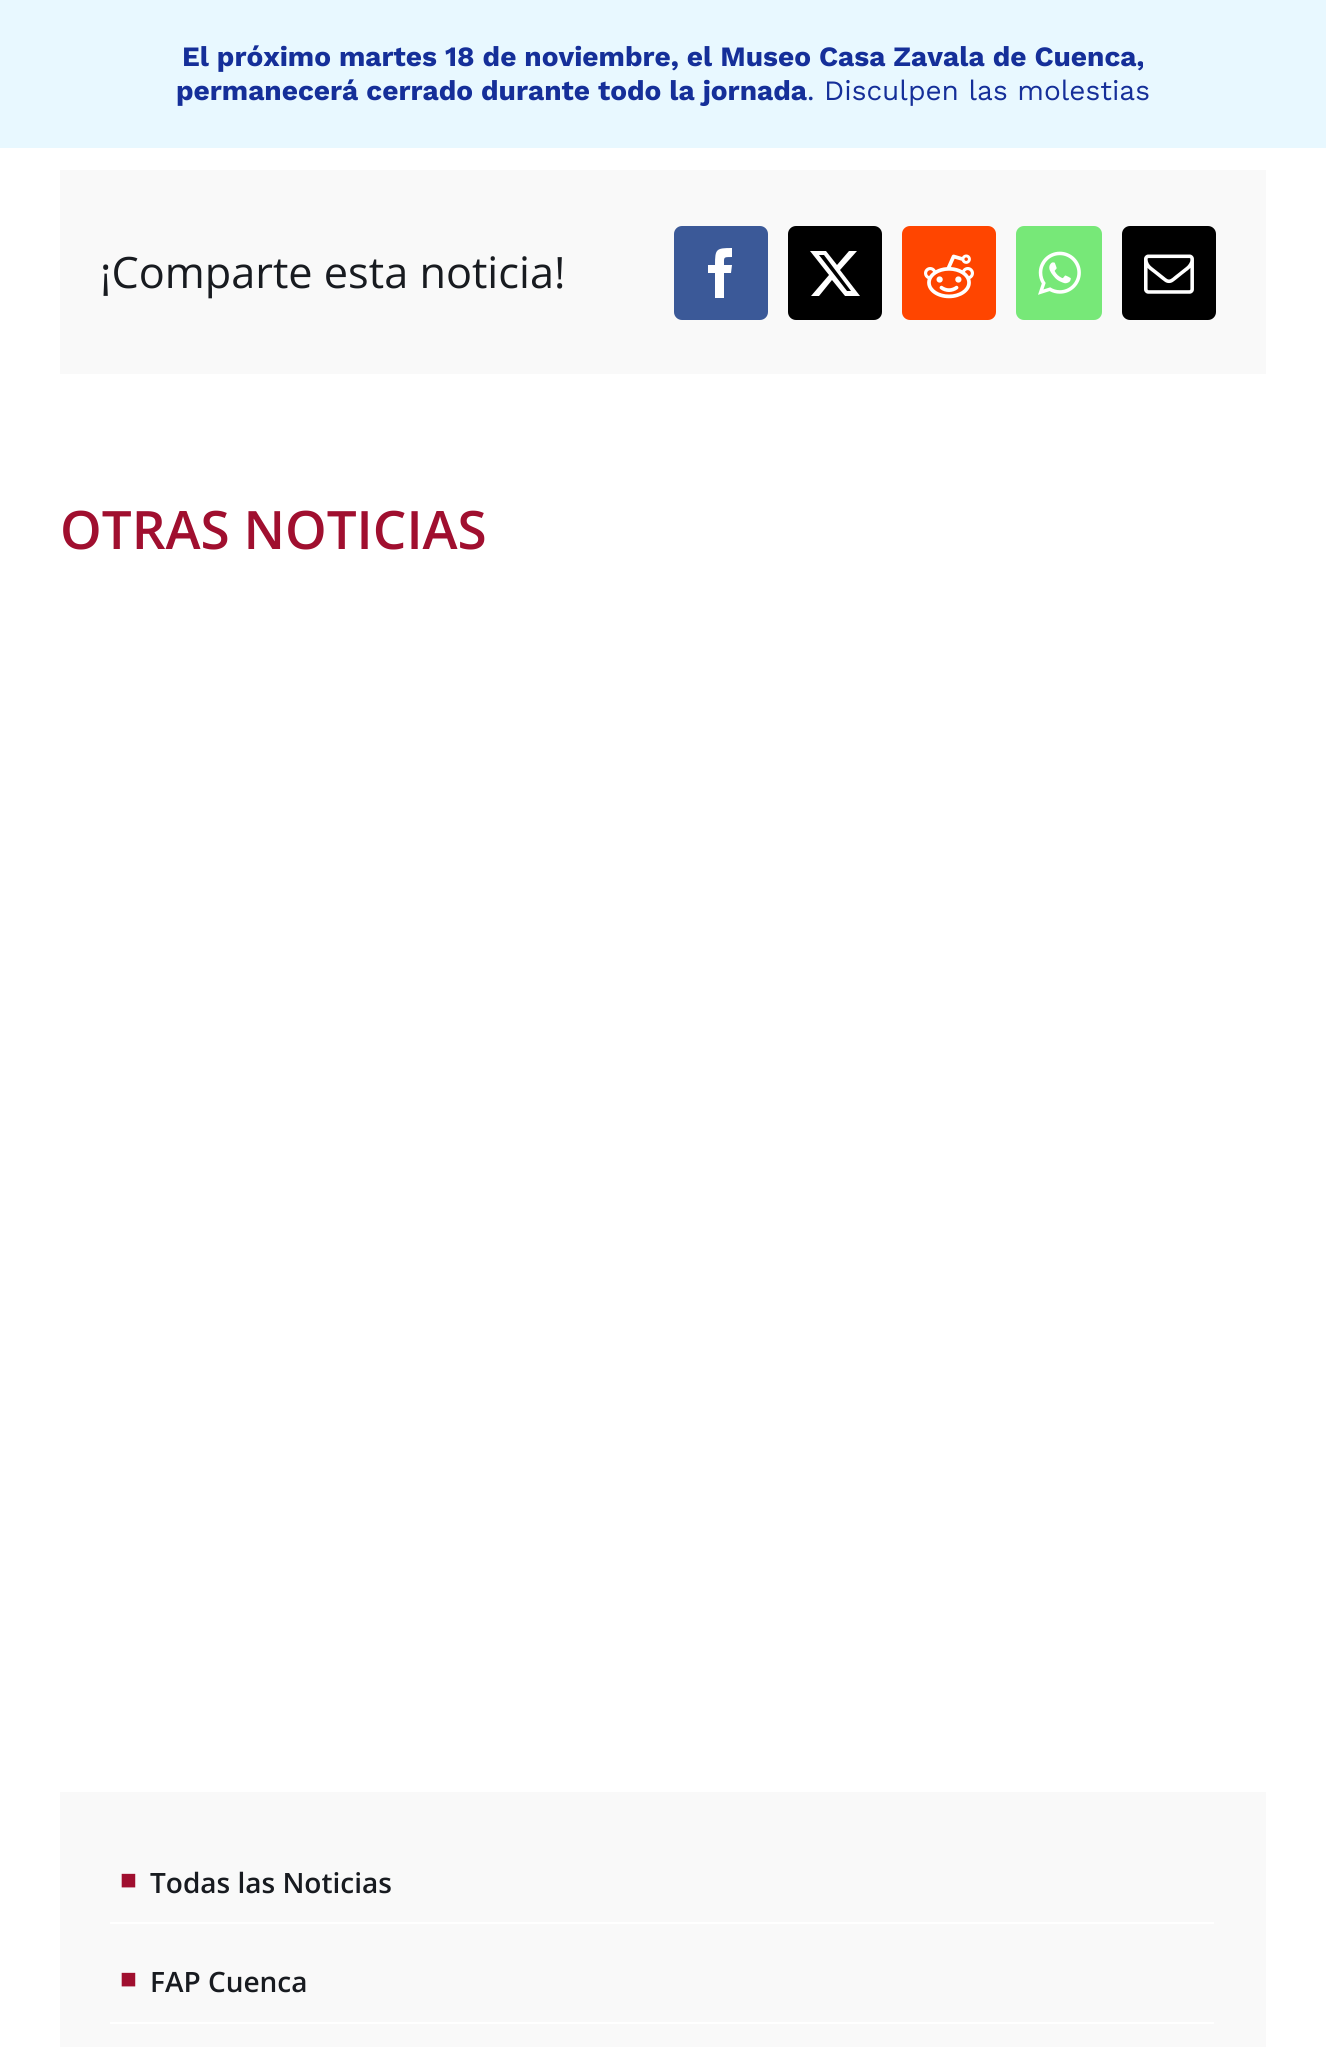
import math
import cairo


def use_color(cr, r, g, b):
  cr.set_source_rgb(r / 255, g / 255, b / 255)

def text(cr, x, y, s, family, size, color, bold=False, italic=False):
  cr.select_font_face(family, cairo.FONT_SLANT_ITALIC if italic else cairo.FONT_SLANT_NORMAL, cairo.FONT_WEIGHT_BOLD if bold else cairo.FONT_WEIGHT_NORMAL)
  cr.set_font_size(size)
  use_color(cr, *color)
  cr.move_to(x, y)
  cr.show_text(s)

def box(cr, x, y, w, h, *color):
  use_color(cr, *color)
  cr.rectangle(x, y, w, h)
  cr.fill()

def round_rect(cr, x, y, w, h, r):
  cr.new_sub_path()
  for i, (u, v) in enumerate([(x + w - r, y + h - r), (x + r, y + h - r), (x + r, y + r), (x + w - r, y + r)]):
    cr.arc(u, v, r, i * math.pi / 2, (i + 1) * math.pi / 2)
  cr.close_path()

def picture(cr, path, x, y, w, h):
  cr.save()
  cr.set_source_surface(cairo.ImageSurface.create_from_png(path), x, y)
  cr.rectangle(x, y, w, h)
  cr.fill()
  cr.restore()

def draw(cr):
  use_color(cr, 255, 255, 255)
  cr.paint()
  box(cr, 0, 0, 1326, 148, 232, 248, 255)
  box(cr, 60, 170, 1206, 204, 249, 249, 249)
  use_color(cr, 59, 89, 152)
  round_rect(cr, 675, 227, 92, 92, 7)
  cr.fill_preserve()
  cr.stroke()
  use_color(cr, 255, 255, 255)
  cr.new_path()
  cr.move_to(724, 298)
  cr.line_to(715, 298)
  cr.line_to(715, 273)
  cr.line_to(708, 273)
  cr.line_to(708, 265)
  cr.line_to(715, 265)
  cr.curve_to(715, 249, 716, 248, 732, 248)
  cr.line_to(732, 257)
  cr.curve_to(723, 257, 724, 257, 724, 265)
  cr.line_to(732, 265)
  cr.line_to(731, 273)
  cr.line_to(724, 273)
  cr.close_path()
  cr.fill()
  use_color(cr, 0, 0, 0)
  round_rect(cr, 789, 227, 92, 92, 7)
  cr.fill_preserve()
  cr.stroke()
  use_color(cr, 255, 255, 255)
  cr.new_path()
  cr.move_to(849, 251)
  cr.line_to(857, 251)
  cr.line_to(840, 270)
  cr.line_to(860, 296)
  cr.line_to(845, 296)
  cr.line_to(832, 280)
  cr.line_to(819, 296)
  cr.line_to(811, 296)
  cr.line_to(829, 275)
  cr.line_to(810, 251)
  cr.line_to(826, 251)
  cr.line_to(837, 265)
  cr.close_path()
  cr.move_to(847, 291)
  cr.line_to(851, 291)
  cr.line_to(824, 255)
  cr.line_to(819, 255)
  cr.close_path()
  cr.fill()
  use_color(cr, 255, 69, 0)
  round_rect(cr, 903, 227, 92, 92, 7)
  cr.fill_preserve()
  cr.stroke()
  picture(cr, "img_01.png", 924, 254, 50, 45)
  use_color(cr, 119, 232, 120)
  round_rect(cr, 1017, 227, 84, 92, 7)
  cr.fill_preserve()
  cr.stroke()
  picture(cr, "img_02.png", 1038, 251, 43, 44)
  use_color(cr, 0, 0, 0)
  round_rect(cr, 1123, 227, 92, 92, 7)
  cr.fill_preserve()
  cr.stroke()
  picture(cr, "img_03.png", 1144, 254, 50, 40)
  box(cr, 60, 1792, 1206, 255, 249, 249, 249)
  box(cr, 110, 1922, 1104, 2, 255, 255, 255)
  box(cr, 110, 2022, 1104, 2, 255, 255, 255)
  text(cr, 182, 66, "El próximo martes 18 de noviembre, el Museo Casa Zavala de Cuenca,", "Work Sans", 28, (21, 47, 153), bold=True)
  text(cr, 176, 100, "permanecerá cerrado durante todo la jornada", "Work Sans", 28, (21, 47, 153), bold=True)
  text(cr, 807, 100, ". Disculpen las molestias", "Work Sans", 28, (21, 47, 153))
  text(cr, 100, 288, "¡Comparte esta noticia!", "Open Sans", 43.25, (24, 27, 32))
  text(cr, 60, 549, "OTRAS NOTICIAS", "Open Sans SemiBold", 53, (160, 15, 47))
  text(cr, 120, 1889, "■", "Liberation Sans", 28, (160, 15, 47), bold=True)
  text(cr, 150, 1893, "Todas las Noticias", "Open Sans SemiBold", 28, (24, 27, 32))
  text(cr, 120, 1988, "■", "Liberation Sans", 28, (160, 15, 47), bold=True)
  text(cr, 150, 1992, "FAP Cuenca", "Open Sans SemiBold", 28, (24, 27, 32))


surface = cairo.ImageSurface(cairo.FORMAT_RGB24, 1326, 2047)
cr = cairo.Context(surface)
options = cairo.FontOptions()
options.set_hint_metrics(cairo.HINT_METRICS_OFF)
options.set_hint_style(cairo.HINT_STYLE_NONE)
cr.set_font_options(options)
cr.set_miter_limit(4)
draw(cr)
surface.write_to_png("out.png")
